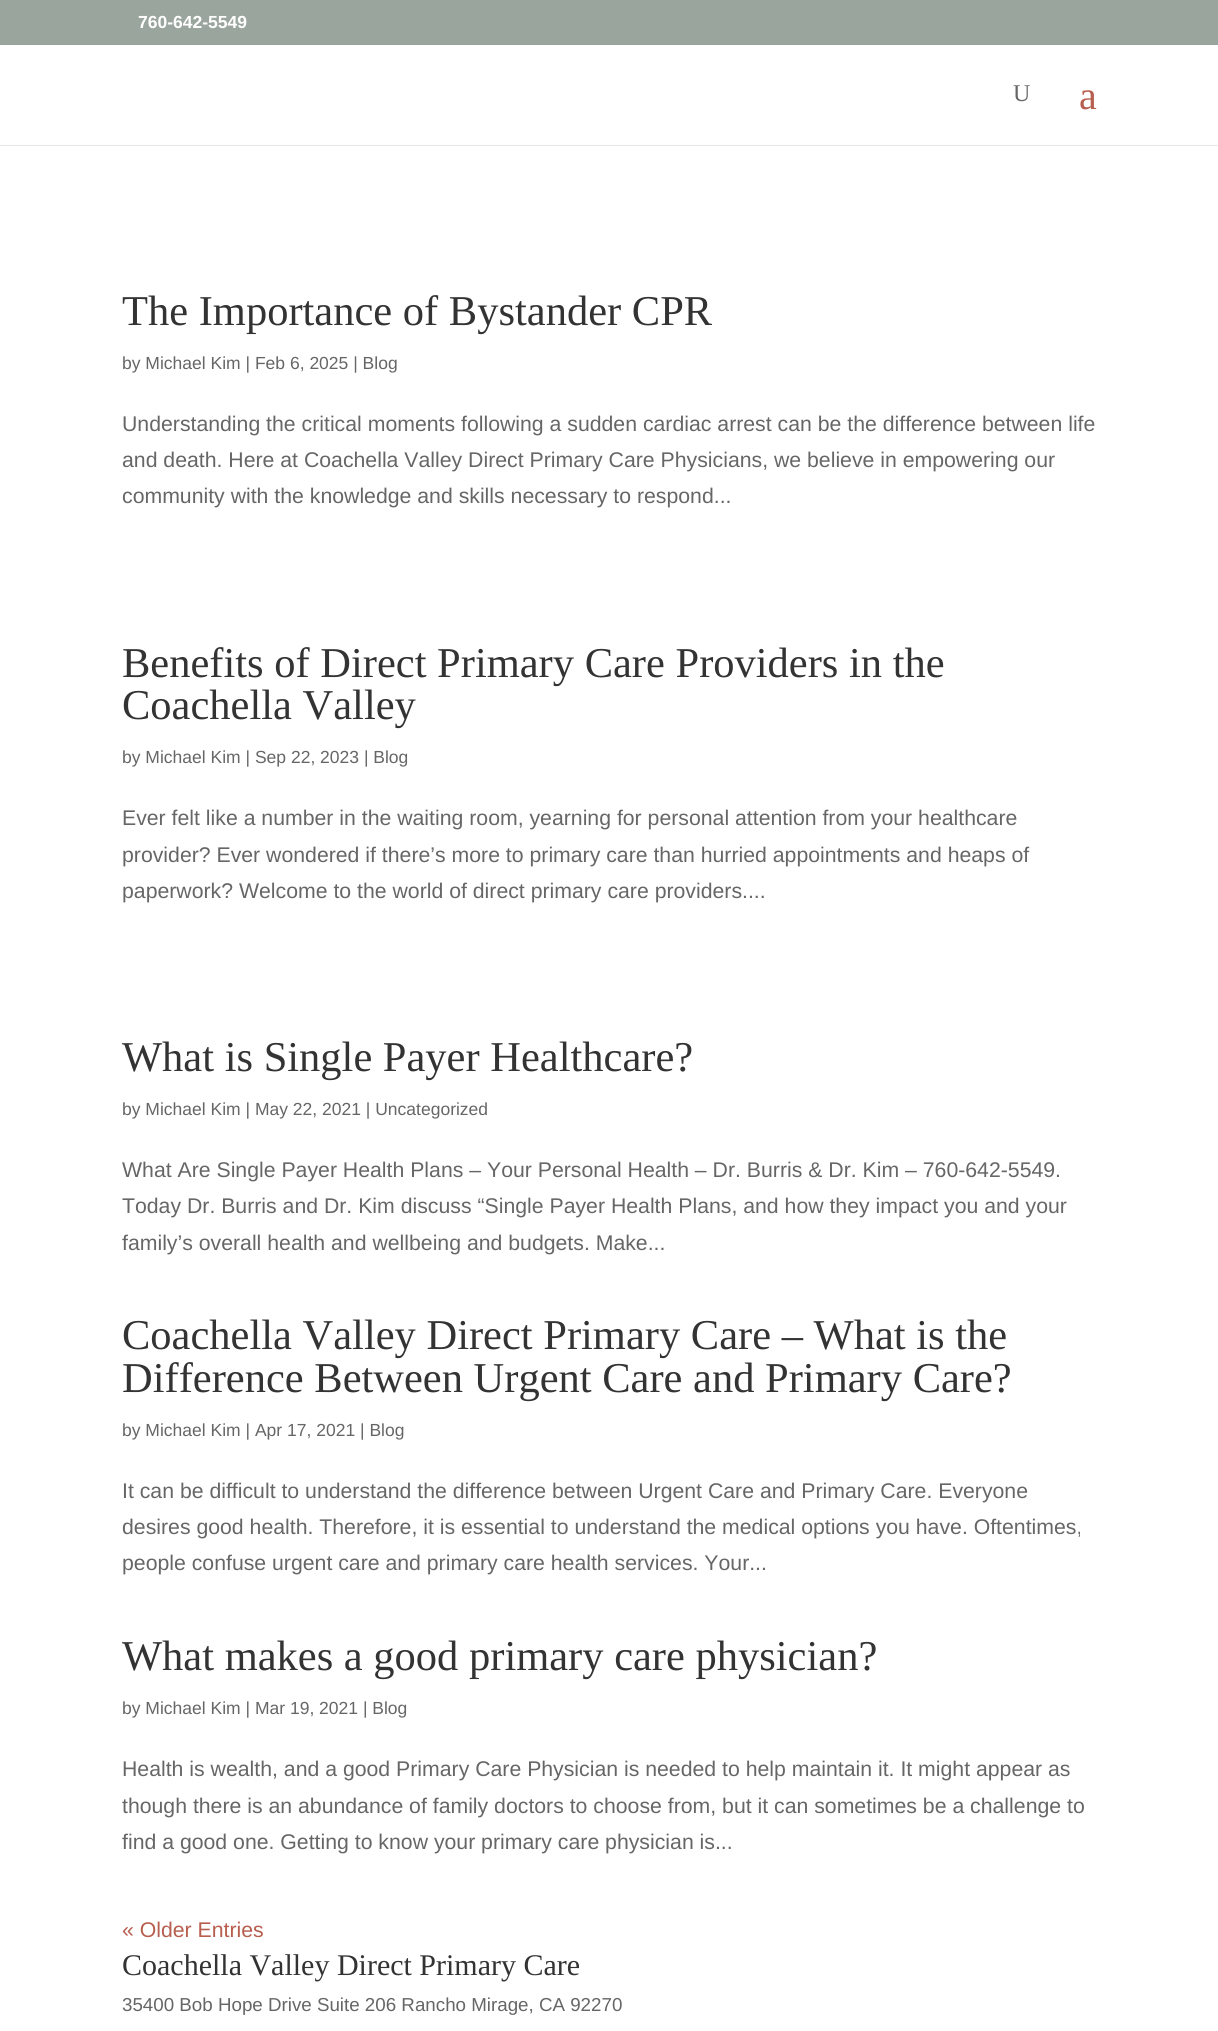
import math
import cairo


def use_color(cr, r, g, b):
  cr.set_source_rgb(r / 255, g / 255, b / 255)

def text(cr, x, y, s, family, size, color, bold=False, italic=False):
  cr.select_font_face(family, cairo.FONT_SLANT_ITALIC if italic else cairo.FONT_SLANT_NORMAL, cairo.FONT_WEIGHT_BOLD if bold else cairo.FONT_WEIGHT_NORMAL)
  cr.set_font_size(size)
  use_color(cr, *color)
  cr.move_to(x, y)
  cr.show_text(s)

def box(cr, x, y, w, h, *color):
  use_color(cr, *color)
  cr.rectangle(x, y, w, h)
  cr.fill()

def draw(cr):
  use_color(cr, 255, 255, 255)
  cr.paint()
  box(cr, 0, 0, 1218, 45, 154, 165, 157)
  use_color(cr, 230, 230, 230)
  cr.new_path()
  cr.move_to(0, 145)
  cr.line_to(0, 146)
  cr.line_to(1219, 146)
  cr.line_to(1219, 46)
  cr.line_to(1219, 145)
  cr.close_path()
  cr.fill()
  text(cr, 138, 28, "760-642-5549", "Liberation Sans", 17.5, (255, 255, 255), bold=True)
  text(cr, 1013, 101, "U", "Liberation Serif", 24, (102, 102, 102))
  text(cr, 1079, 109, "a", "Liberation Serif", 40, (183, 94, 78))
  text(cr, 122, 325, "The Importance of Bystander CPR", "Liberation Serif", 42.5, (51, 51, 51))
  text(cr, 122, 369, "by Michael Kim | Feb 6, 2025 | Blog", "Liberation Sans", 17.5, (102, 102, 102))
  text(cr, 122, 431, "Understanding the critical moments following a sudden cardiac arrest can be the difference between life", "Liberation Sans", 21.25, (102, 102, 102))
  text(cr, 122, 467, "and death. Here at Coachella Valley Direct Primary Care Physicians, we believe in empowering our", "Liberation Sans", 21.25, (102, 102, 102))
  text(cr, 122, 503, "community with the knowledge and skills necessary to respond...", "Liberation Sans", 21.25, (102, 102, 102))
  text(cr, 122, 677, "Benefits of Direct Primary Care Providers in the", "Liberation Serif", 42.5, (51, 51, 51))
  text(cr, 122, 719, "Coachella Valley", "Liberation Serif", 42.5, (51, 51, 51))
  text(cr, 122, 763, "by Michael Kim | Sep 22, 2023 | Blog", "Liberation Sans", 17.5, (102, 102, 102))
  text(cr, 122, 825, "Ever felt like a number in the waiting room, yearning for personal attention from your healthcare", "Liberation Sans", 21.25, (102, 102, 102))
  text(cr, 122, 862, "provider? Ever wondered if there’s more to primary care than hurried appointments and heaps of", "Liberation Sans", 21.25, (102, 102, 102))
  text(cr, 122, 898, "paperwork? Welcome to the world of direct primary care providers....", "Liberation Sans", 21.25, (102, 102, 102))
  text(cr, 122, 1071, "What is Single Payer Healthcare?", "Liberation Serif", 42.5, (51, 51, 51))
  text(cr, 122, 1115, "by Michael Kim | May 22, 2021 | Uncategorized", "Liberation Sans", 17.5, (102, 102, 102))
  text(cr, 122, 1177, "What Are Single Payer Health Plans – Your Personal Health – Dr. Burris & Dr. Kim – 760-642-5549.", "Liberation Sans", 21.25, (102, 102, 102))
  text(cr, 122, 1213, "Today Dr. Burris and Dr. Kim discuss “Single Payer Health Plans, and how they impact you and your", "Liberation Sans", 21.25, (102, 102, 102))
  text(cr, 122, 1250, "family’s overall health and wellbeing and budgets. Make...", "Liberation Sans", 21.25, (102, 102, 102))
  text(cr, 122, 1349, "Coachella Valley Direct Primary Care – What is the", "Liberation Serif", 42.5, (51, 51, 51))
  text(cr, 122, 1392, "Difference Between Urgent Care and Primary Care?", "Liberation Serif", 42.5, (51, 51, 51))
  text(cr, 122, 1436, "by Michael Kim | Apr 17, 2021 | Blog", "Liberation Sans", 17.5, (102, 102, 102))
  text(cr, 122, 1498, "It can be difficult to understand the difference between Urgent Care and Primary Care. Everyone", "Liberation Sans", 21.25, (102, 102, 102))
  text(cr, 122, 1534, "desires good health. Therefore, it is essential to understand the medical options you have. Oftentimes,", "Liberation Sans", 21.25, (102, 102, 102))
  text(cr, 122, 1570, "people confuse urgent care and primary care health services. Your...", "Liberation Sans", 21.25, (102, 102, 102))
  text(cr, 122, 1670, "What makes a good primary care physician?", "Liberation Serif", 42.5, (51, 51, 51))
  text(cr, 122, 1714, "by Michael Kim | Mar 19, 2021 | Blog", "Liberation Sans", 17.5, (102, 102, 102))
  text(cr, 122, 1776, "Health is wealth, and a good Primary Care Physician is needed to help maintain it. It might appear as", "Liberation Sans", 21.25, (102, 102, 102))
  text(cr, 122, 1813, "though there is an abundance of family doctors to choose from, but it can sometimes be a challenge to", "Liberation Sans", 21.25, (102, 102, 102))
  text(cr, 122, 1849, "find a good one. Getting to know your primary care physician is...", "Liberation Sans", 21.25, (102, 102, 102))
  text(cr, 122, 1937, "« Older Entries", "Liberation Sans", 21.25, (183, 94, 78))
  text(cr, 122, 1975, "Coachella Valley Direct Primary Care", "Liberation Serif", 30, (51, 51, 51))
  text(cr, 122, 2011, "35400 Bob Hope Drive Suite 206 Rancho Mirage, CA 92270", "Liberation Sans", 18.75, (102, 102, 102))


surface = cairo.ImageSurface(cairo.FORMAT_RGB24, 1218, 2031)
cr = cairo.Context(surface)
options = cairo.FontOptions()
options.set_hint_metrics(cairo.HINT_METRICS_OFF)
options.set_hint_style(cairo.HINT_STYLE_NONE)
cr.set_font_options(options)
cr.set_miter_limit(4)
draw(cr)
surface.write_to_png("out.png")
